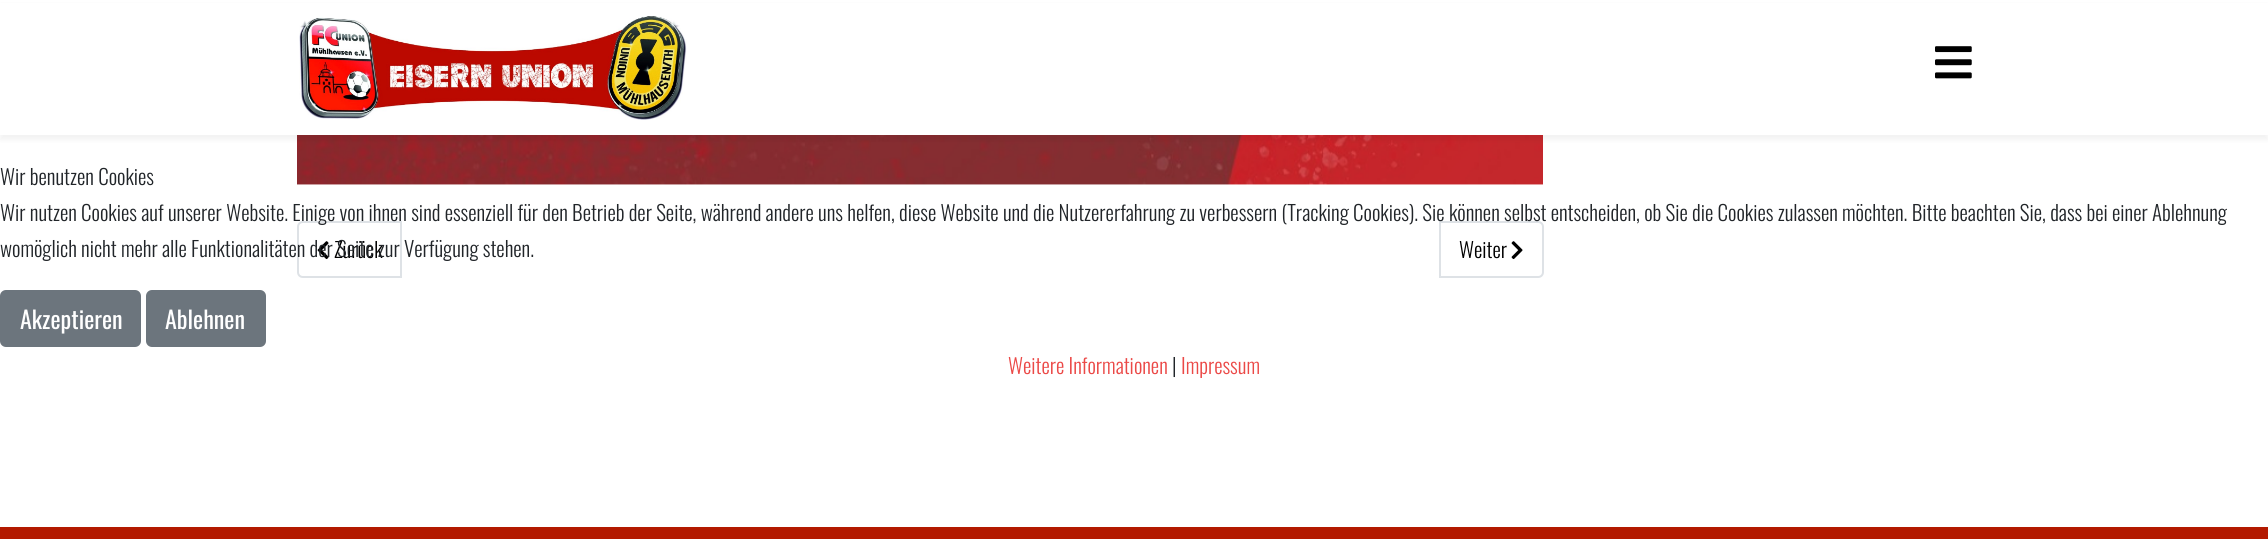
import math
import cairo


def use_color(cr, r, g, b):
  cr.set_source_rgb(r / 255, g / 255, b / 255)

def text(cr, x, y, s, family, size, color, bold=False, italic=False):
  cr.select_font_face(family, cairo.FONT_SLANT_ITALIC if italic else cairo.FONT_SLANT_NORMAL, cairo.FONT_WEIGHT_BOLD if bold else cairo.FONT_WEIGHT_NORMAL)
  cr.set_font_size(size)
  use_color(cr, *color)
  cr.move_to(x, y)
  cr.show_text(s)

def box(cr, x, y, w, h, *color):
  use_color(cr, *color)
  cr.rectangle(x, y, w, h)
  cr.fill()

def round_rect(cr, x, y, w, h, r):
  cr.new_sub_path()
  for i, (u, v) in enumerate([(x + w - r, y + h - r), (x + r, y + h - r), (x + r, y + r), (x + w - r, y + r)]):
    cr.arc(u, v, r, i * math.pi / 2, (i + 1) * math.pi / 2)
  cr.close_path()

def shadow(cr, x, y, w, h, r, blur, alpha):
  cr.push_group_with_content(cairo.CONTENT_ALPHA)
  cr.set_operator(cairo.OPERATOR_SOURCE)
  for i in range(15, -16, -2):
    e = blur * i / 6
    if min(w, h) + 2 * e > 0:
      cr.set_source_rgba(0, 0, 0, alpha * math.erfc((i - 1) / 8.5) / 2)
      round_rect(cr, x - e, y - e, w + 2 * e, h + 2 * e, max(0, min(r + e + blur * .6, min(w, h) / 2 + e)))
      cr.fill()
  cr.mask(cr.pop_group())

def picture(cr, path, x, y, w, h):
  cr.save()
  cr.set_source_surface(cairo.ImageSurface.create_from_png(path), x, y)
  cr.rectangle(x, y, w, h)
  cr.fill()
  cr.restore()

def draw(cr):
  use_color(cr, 255, 255, 255)
  cr.paint()
  use_color(cr, 108, 117, 125)
  round_rect(cr, 1, 291, 139, 55, 5)
  cr.fill_preserve()
  cr.stroke()
  round_rect(cr, 147, 291, 118, 55, 5)
  cr.fill_preserve()
  cr.stroke()
  picture(cr, "img_03.png", 297, 135, 1246, 50)
  use_color(cr, 0, 0, 0)
  shadow(cr, 0, 5, 2268, 135, 0, 2, 0.05)
  box(cr, 0, 3, 2268, 132, 255, 255, 255)
  picture(cr, "img_01.png", 299, 16, 388, 104)
  picture(cr, "img_02.png", 1935, 46, 37, 33)
  cr.new_path()
  cr.move_to(303, 222)
  cr.line_to(401, 222)
  cr.line_to(401, 277)
  cr.line_to(303, 277)
  cr.curve_to(300, 277, 298, 275, 298, 272)
  cr.line_to(298, 227)
  cr.curve_to(298, 224, 300, 222, 303, 222)
  cr.close_path()
  use_color(cr, 222, 226, 230)
  cr.stroke()
  picture(cr, "img_04.png", 317, 241, 12, 19)
  cr.new_path()
  cr.move_to(1440, 222)
  cr.line_to(1538, 222)
  cr.curve_to(1541, 222, 1543, 224, 1543, 227)
  cr.line_to(1543, 272)
  cr.curve_to(1543, 275, 1541, 277, 1538, 277)
  cr.line_to(1440, 277)
  cr.close_path()
  cr.stroke()
  picture(cr, "img_05.png", 1511, 241, 12, 19)
  box(cr, 0, 527, 2268, 12, 179, 25, 0)
  text(cr, 0, 185, "Wir benutzen Cookies", "Oswald Light", 21, (33, 37, 41))
  text(cr, 0, 221, "Wir nutzen Cookies auf unserer Website. Einige von ihnen sind essenziell für den Betrieb der Seite, während andere uns helfen, diese Website und die Nutzererfahrung zu verbessern (Tracking Cookies). Sie können selbst entscheiden, ob Sie die Cookies zulassen möchten. Bitte beachten Sie, dass bei einer Ablehnung", "Oswald Light", 21, (33, 37, 41))
  text(cr, 20, 329, "Akzeptieren", "Oswald", 24, (255, 255, 255))
  text(cr, 165, 329, "Ablehnen", "Oswald", 24, (255, 255, 255))
  text(cr, 1008, 374, "Weitere Informationen", "Oswald Light", 21, (235, 73, 71))
  text(cr, 1172, 374, "|", "Oswald Light", 21, (33, 37, 41))
  text(cr, 1181, 374, "Impressum", "Oswald Light", 21, (235, 73, 71))
  text(cr, 334, 258, "Zurück", "Oswald Light", 21, (0, 0, 0))
  text(cr, 0, 257, "womöglich nicht mehr alle Funktionalitäten der Seite zur Verfügung stehen.", "Oswald Light", 21, (33, 37, 41))
  text(cr, 1459, 258, "Weiter", "Oswald Light", 21, (0, 0, 0))


surface = cairo.ImageSurface(cairo.FORMAT_RGB24, 2268, 539)
cr = cairo.Context(surface)
options = cairo.FontOptions()
options.set_hint_metrics(cairo.HINT_METRICS_OFF)
options.set_hint_style(cairo.HINT_STYLE_NONE)
cr.set_font_options(options)
cr.set_miter_limit(4)
draw(cr)
surface.write_to_png("out.png")
